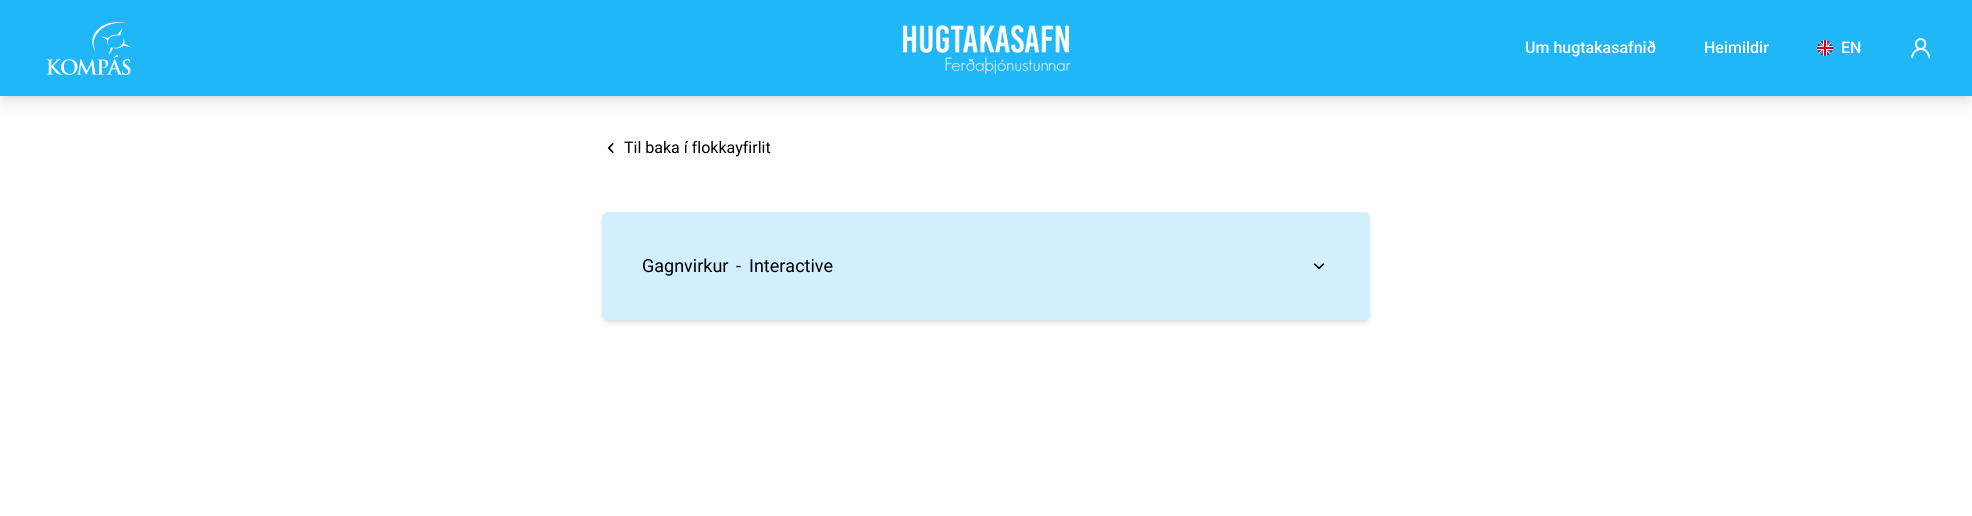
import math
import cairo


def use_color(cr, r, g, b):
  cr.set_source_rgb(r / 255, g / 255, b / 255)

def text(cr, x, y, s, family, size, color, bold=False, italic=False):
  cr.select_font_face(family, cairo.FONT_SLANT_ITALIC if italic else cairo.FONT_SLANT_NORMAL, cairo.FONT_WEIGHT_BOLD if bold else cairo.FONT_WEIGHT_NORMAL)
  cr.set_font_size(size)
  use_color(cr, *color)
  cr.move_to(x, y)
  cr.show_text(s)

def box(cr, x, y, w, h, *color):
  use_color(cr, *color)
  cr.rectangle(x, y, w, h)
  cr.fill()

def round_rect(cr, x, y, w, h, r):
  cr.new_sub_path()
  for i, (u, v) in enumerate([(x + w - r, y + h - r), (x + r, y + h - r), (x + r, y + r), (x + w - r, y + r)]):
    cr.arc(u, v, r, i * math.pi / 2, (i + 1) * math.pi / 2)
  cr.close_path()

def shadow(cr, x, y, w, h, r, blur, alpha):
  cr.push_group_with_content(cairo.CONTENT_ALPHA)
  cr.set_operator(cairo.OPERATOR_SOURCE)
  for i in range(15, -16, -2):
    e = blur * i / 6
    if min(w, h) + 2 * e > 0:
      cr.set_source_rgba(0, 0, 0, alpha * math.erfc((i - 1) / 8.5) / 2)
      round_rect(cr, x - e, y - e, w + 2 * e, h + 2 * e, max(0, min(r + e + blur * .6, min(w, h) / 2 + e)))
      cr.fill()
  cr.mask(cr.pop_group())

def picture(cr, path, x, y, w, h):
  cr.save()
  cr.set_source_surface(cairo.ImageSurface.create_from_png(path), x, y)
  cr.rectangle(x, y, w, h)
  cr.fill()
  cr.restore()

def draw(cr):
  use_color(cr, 255, 255, 255)
  cr.paint()
  use_color(cr, 0, 0, 0)
  shadow(cr, 4, 8, 1964, 88, 0, 3, 0.1)
  shadow(cr, 3, 13, 1966, 90, 0, 7.5, 0.1)
  box(cr, 0, 0, 1972, 96, 31, 183, 248)
  picture(cr, "img_01.png", 46, 22, 85, 53)
  picture(cr, "img_02.png", 902, 24, 169, 51)
  picture(cr, "img_03.png", 1817, 40, 16, 16)
  picture(cr, "img_04.png", 1911, 38, 19, 20)
  picture(cr, "img_05.png", 607, 143, 7, 10)
  use_color(cr, 0, 0, 0)
  shadow(cr, 604, 216, 764, 104, 4, 2, 0.1)
  shadow(cr, 603, 217, 766, 106, 5, 3, 0.1)
  use_color(cr, 210, 239, 255)
  round_rect(cr, 602, 212, 768, 108, 6)
  cr.fill()
  picture(cr, "img_06.png", 1314, 263, 10, 7)
  text(cr, 1525, 53, "Um hugtakasafnið", "Roboto Medium", 16, (255, 255, 255))
  text(cr, 1704, 53, "Heimildir", "Roboto Medium", 16, (255, 255, 255))
  text(cr, 1841, 53, "EN", "Roboto Medium", 16, (255, 255, 255))
  text(cr, 624, 153, "Til baka í flokkayfirlit", "Roboto", 16, (0, 0, 0))
  text(cr, 642, 272, "Gagnvirkur", "Roboto", 18, (0, 0, 0))
  text(cr, 736, 272, "-", "Roboto", 18, (0, 0, 0))
  text(cr, 749, 272, "Interactive", "Roboto", 18, (0, 0, 0))


surface = cairo.ImageSurface(cairo.FORMAT_RGB24, 1972, 516)
cr = cairo.Context(surface)
options = cairo.FontOptions()
options.set_hint_metrics(cairo.HINT_METRICS_OFF)
options.set_hint_style(cairo.HINT_STYLE_NONE)
cr.set_font_options(options)
cr.set_miter_limit(4)
draw(cr)
surface.write_to_png("out.png")
